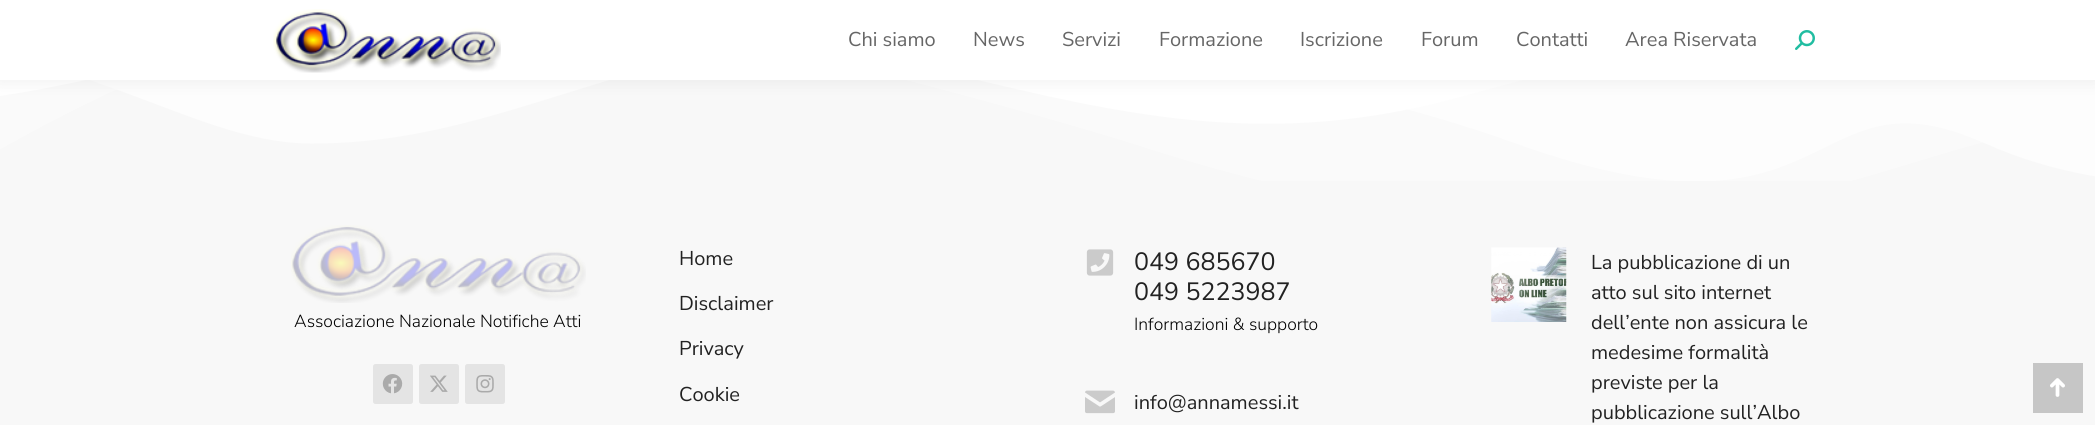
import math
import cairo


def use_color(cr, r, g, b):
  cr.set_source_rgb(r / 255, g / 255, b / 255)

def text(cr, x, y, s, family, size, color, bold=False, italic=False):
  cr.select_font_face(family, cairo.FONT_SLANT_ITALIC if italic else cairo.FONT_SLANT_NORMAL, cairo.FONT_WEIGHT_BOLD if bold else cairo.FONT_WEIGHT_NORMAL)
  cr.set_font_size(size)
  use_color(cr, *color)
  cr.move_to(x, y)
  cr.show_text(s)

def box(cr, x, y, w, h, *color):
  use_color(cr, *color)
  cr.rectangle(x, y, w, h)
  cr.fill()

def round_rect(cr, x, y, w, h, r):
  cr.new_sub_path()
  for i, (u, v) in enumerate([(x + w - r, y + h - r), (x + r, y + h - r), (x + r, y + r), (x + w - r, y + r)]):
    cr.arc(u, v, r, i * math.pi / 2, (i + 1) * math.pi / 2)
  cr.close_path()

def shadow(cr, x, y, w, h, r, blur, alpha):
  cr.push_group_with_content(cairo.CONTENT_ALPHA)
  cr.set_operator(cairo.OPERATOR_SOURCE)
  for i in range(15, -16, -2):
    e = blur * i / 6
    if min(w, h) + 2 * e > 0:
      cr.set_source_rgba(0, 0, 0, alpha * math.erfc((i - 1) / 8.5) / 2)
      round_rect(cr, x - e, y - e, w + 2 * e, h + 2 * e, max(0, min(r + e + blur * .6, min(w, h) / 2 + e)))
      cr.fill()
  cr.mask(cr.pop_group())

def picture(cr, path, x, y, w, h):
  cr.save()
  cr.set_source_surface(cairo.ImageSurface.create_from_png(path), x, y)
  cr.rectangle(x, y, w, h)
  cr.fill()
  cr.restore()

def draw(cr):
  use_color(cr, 248, 248, 248)
  cr.paint()
  picture(cr, "img_03.png", 0, 80, 2095, 101)
  use_color(cr, 0, 0, 0)
  shadow(cr, -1, -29, 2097, 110, 0, 9.5, 0.07)
  box(cr, 0, 0, 2095, 80, 255, 255, 255)
  picture(cr, "img_01.png", 273, 9, 228, 64)
  picture(cr, "img_02.png", 1795, 30, 20, 20)
  picture(cr, "img_04.png", 291, 225, 295, 78)
  use_color(cr, 228, 228, 228)
  round_rect(cr, 373, 364, 40, 40, 2.5)
  cr.fill()
  picture(cr, "img_05.png", 382, 374, 21, 20)
  round_rect(cr, 419, 364, 40, 40, 2.5)
  cr.fill()
  picture(cr, "img_06.png", 430, 375, 18, 17)
  round_rect(cr, 465, 364, 40, 40, 2.5)
  cr.fill()
  picture(cr, "img_07.png", 476, 375, 18, 18)
  picture(cr, "img_08.png", 1086, 249, 28, 27)
  picture(cr, "img_09.png", 1085, 390, 30, 24)
  picture(cr, "img_10.png", 1491, 247, 76, 75)
  box(cr, 2033, 363, 50, 50, 198, 198, 198)
  picture(cr, "img_11.png", 2050, 378, 15, 19)
  text(cr, 848, 46, "Chi siamo", "Nunito Sans", 20, (102, 102, 102))
  text(cr, 973, 46, "News", "Nunito Sans", 20, (102, 102, 102))
  text(cr, 1062, 46, "Servizi", "Nunito Sans", 20, (102, 102, 102))
  text(cr, 1159, 46, "Formazione", "Nunito Sans", 20, (102, 102, 102))
  text(cr, 1300, 46, "Iscrizione", "Nunito Sans", 20, (102, 102, 102))
  text(cr, 1421, 46, "Forum", "Nunito Sans", 20, (102, 102, 102))
  text(cr, 1516, 46, "Contatti", "Nunito Sans", 20, (102, 102, 102))
  text(cr, 1625, 46, "Area Riservata", "Nunito Sans", 20, (102, 102, 102))
  text(cr, 294, 327, "Associazione Nazionale Notifiche Atti", "Nunito Sans Light", 17.5, (0, 0, 0))
  text(cr, 679, 265, "Home", "Nunito Sans", 20, (34, 34, 34))
  text(cr, 679, 310, "Disclaimer", "Nunito Sans", 20, (34, 34, 34))
  text(cr, 679, 355, "Privacy", "Nunito Sans", 20, (34, 34, 34))
  text(cr, 679, 401, "Cookie", "Nunito Sans", 20, (34, 34, 34))
  text(cr, 1134, 270, "049 685670", "Nunito Sans", 25, (34, 34, 34))
  text(cr, 1134, 300, "049 5223987", "Nunito Sans", 25, (34, 34, 34))
  text(cr, 1134, 330, "Informazioni & supporto", "Nunito Sans Light", 17.5, (0, 0, 0))
  text(cr, 1134, 409, "info@annamessi.it", "Nunito Sans", 20, (34, 34, 34))
  text(cr, 1591, 269, "La pubblicazione di un", "Nunito Sans", 20, (34, 34, 34))
  text(cr, 1591, 299, "atto sul sito internet", "Nunito Sans", 20, (34, 34, 34))
  text(cr, 1591, 329, "dell’ente non assicura le", "Nunito Sans", 20, (34, 34, 34))
  text(cr, 1591, 359, "medesime formalità", "Nunito Sans", 20, (34, 34, 34))
  text(cr, 1591, 389, "previste per la", "Nunito Sans", 20, (34, 34, 34))
  text(cr, 1591, 419, "pubblicazione sull’Albo", "Nunito Sans", 20, (34, 34, 34))


surface = cairo.ImageSurface(cairo.FORMAT_RGB24, 2095, 425)
cr = cairo.Context(surface)
options = cairo.FontOptions()
options.set_hint_metrics(cairo.HINT_METRICS_OFF)
options.set_hint_style(cairo.HINT_STYLE_NONE)
cr.set_font_options(options)
cr.set_miter_limit(4)
draw(cr)
surface.write_to_png("out.png")
